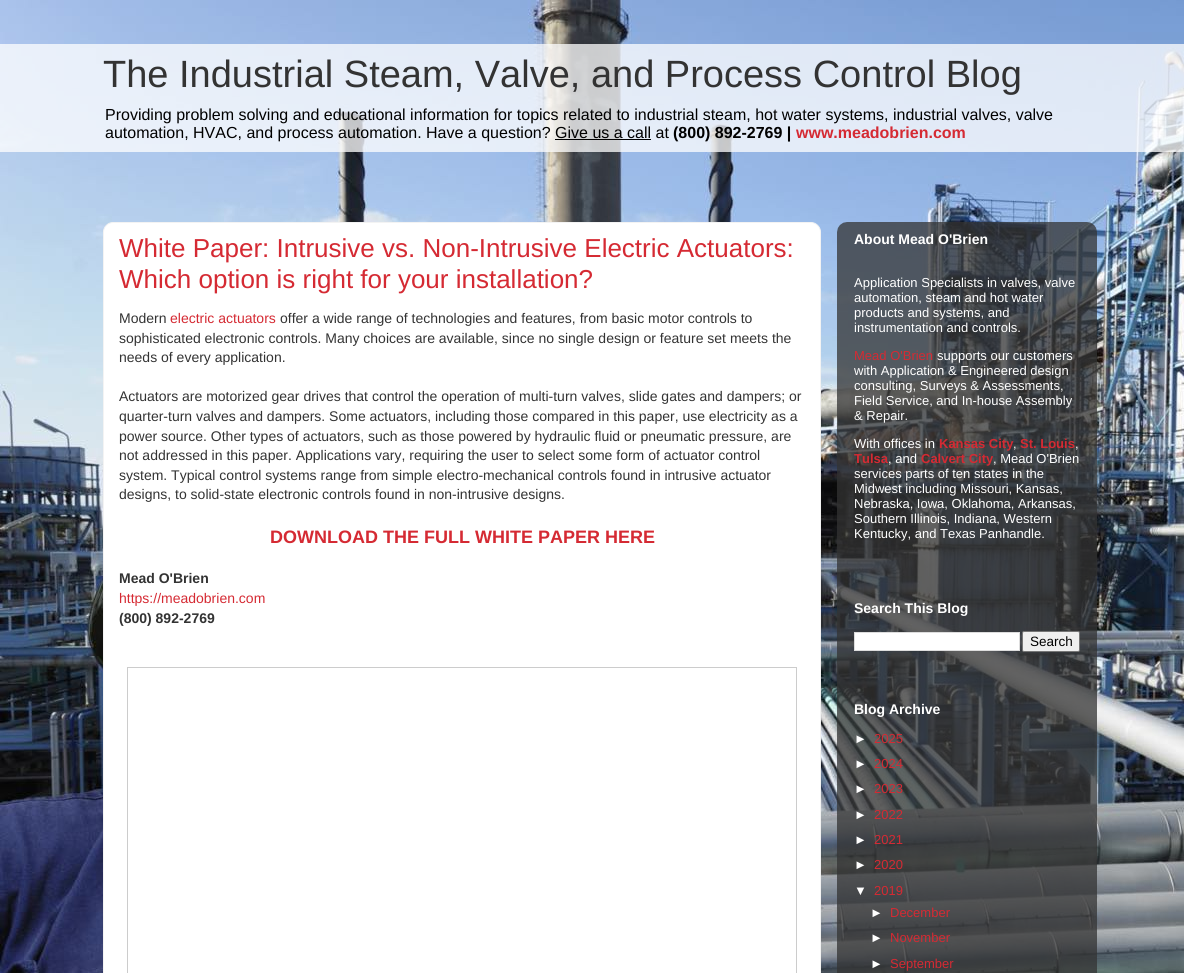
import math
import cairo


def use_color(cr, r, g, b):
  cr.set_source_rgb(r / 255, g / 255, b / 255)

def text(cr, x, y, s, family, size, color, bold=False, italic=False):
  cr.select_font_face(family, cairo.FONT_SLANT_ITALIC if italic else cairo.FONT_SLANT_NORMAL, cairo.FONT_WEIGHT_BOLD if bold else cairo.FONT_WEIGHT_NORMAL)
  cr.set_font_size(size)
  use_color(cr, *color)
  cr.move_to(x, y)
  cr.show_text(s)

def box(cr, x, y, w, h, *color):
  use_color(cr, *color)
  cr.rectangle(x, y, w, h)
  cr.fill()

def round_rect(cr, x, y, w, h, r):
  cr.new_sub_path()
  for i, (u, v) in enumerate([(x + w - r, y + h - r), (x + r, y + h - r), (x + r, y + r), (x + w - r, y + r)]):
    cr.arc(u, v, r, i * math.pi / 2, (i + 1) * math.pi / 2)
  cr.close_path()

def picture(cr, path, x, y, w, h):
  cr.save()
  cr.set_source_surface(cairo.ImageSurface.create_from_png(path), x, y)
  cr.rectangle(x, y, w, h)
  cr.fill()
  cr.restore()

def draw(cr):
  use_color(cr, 255, 255, 255)
  cr.paint()
  picture(cr, "img_01.png", 0, 0, 1184, 973)
  cr.set_source_rgba(1, 1, 1, 0.75)
  cr.rectangle(0, 44, 1184, 108)
  cr.fill()
  box(cr, 555, 139, 96, 1, 0, 0, 0)
  use_color(cr, 255, 255, 255)
  cr.new_path()
  cr.move_to(113, 222.5)
  cr.line_to(811, 222.5)
  cr.curve_to(816, 222.5, 820.5, 227, 820.5, 232)
  cr.line_to(820.5, 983.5)
  cr.line_to(103.5, 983.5)
  cr.line_to(103.5, 232)
  cr.curve_to(103.5, 227, 108, 222.5, 113, 222.5)
  cr.close_path()
  cr.fill_preserve()
  use_color(cr, 243, 243, 243)
  cr.set_line_width(1)
  cr.stroke()
  cr.rectangle(127.5, 667.5, 669, 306)
  use_color(cr, 204, 204, 204)
  cr.stroke()
  picture(cr, "img_02.png", 837, 222, 260, 751)
  use_color(cr, 255, 255, 255)
  cr.rectangle(854.5, 632.5, 165, 18)
  cr.fill_preserve()
  use_color(cr, 221, 221, 221)
  cr.stroke()
  use_color(cr, 239, 239, 239)
  round_rect(cr, 1022.5, 631.5, 57, 20, 1.5)
  cr.fill_preserve()
  use_color(cr, 118, 118, 118)
  cr.stroke()
  text(cr, 103, 87, "The Industrial Steam, Valve, and Process Control Blog", "Liberation Sans", 38, (51, 51, 51))
  text(cr, 105, 120, "Providing problem solving and educational information for topics related to industrial steam, hot water systems, industrial valves, valve", "Liberation Sans", 16, (0, 0, 0))
  text(cr, 105, 138, "automation, HVAC, and process automation. Have a question? Give us a call at", "Liberation Sans", 16, (0, 0, 0))
  text(cr, 673, 138, "(800) 892-2769 |", "Liberation Sans", 16, (0, 0, 0), bold=True)
  text(cr, 796, 138, "www.meadobrien.com", "Liberation Sans", 16, (213, 42, 51), bold=True)
  text(cr, 119, 257, "White Paper: Intrusive vs. Non-Intrusive Electric Actuators:", "Liberation Sans", 26, (213, 42, 51))
  text(cr, 119, 288, "Which option is right for your installation?", "Liberation Sans", 26, (213, 42, 51))
  text(cr, 119, 323, "Modern", "Liberation Sans", 14, (51, 51, 51))
  text(cr, 170, 323, "electric actuators", "Liberation Sans", 14, (213, 42, 51))
  text(cr, 280, 323, "offer a wide range of technologies and features, from basic motor controls to", "Liberation Sans", 14, (51, 51, 51))
  text(cr, 119, 343, "sophisticated electronic controls. Many choices are available, since no single design or feature set meets the", "Liberation Sans", 14, (51, 51, 51))
  text(cr, 119, 362, "needs of every application.", "Liberation Sans", 14, (51, 51, 51))
  text(cr, 119, 401, "Actuators are motorized gear drives that control the operation of multi-turn valves, slide gates and dampers; or", "Liberation Sans", 14, (51, 51, 51))
  text(cr, 119, 421, "quarter-turn valves and dampers. Some actuators, including those compared in this paper, use electricity as a", "Liberation Sans", 14, (51, 51, 51))
  text(cr, 119, 441, "power source. Other types of actuators, such as those powered by hydraulic fluid or pneumatic pressure, are", "Liberation Sans", 14, (51, 51, 51))
  text(cr, 119, 460, "not addressed in this paper. Applications vary, requiring the user to select some form of actuator control", "Liberation Sans", 14, (51, 51, 51))
  text(cr, 119, 480, "system. Typical control systems range from simple electro-mechanical controls found in intrusive actuator", "Liberation Sans", 14, (51, 51, 51))
  text(cr, 119, 499, "designs, to solid-state electronic controls found in non-intrusive designs.", "Liberation Sans", 14, (51, 51, 51))
  text(cr, 270, 543, "DOWNLOAD THE FULL WHITE PAPER HERE", "Liberation Sans", 18, (213, 42, 51), bold=True)
  text(cr, 119, 583, "Mead O'Brien", "Liberation Sans", 14, (51, 51, 51), bold=True)
  text(cr, 119, 603, "https://meadobrien.com", "Liberation Sans", 14, (213, 42, 51))
  text(cr, 119, 623, "(800) 892-2769", "Liberation Sans", 14, (51, 51, 51), bold=True)
  text(cr, 854, 244, "About Mead O'Brien", "Liberation Sans", 14, (255, 255, 255), bold=True)
  text(cr, 854, 287, "Application Specialists in valves, valve", "Liberation Sans", 13, (255, 255, 255))
  text(cr, 854, 302, "automation, steam and hot water", "Liberation Sans", 13, (255, 255, 255))
  text(cr, 854, 317, "products and systems, and", "Liberation Sans", 13, (255, 255, 255))
  text(cr, 854, 332, "instrumentation and controls.", "Liberation Sans", 13, (255, 255, 255))
  text(cr, 854, 360, "Mead O'Brien", "Liberation Sans", 13, (213, 42, 51))
  text(cr, 937, 360, "supports our customers", "Liberation Sans", 13, (255, 255, 255))
  text(cr, 854, 375, "with Application & Engineered design", "Liberation Sans", 13, (255, 255, 255))
  text(cr, 854, 390, "consulting, Surveys & Assessments,", "Liberation Sans", 13, (255, 255, 255))
  text(cr, 854, 405, "Field Service, and In-house Assembly", "Liberation Sans", 13, (255, 255, 255))
  text(cr, 854, 420, "& Repair.", "Liberation Sans", 13, (255, 255, 255))
  text(cr, 854, 448, "With offices in", "Liberation Sans", 13, (255, 255, 255))
  text(cr, 939, 448, "Kansas City", "Liberation Sans", 13, (213, 42, 51), bold=True)
  text(cr, 1013, 448, ",", "Liberation Sans", 13, (255, 255, 255))
  text(cr, 1020, 448, "St. Louis", "Liberation Sans", 13, (213, 42, 51), bold=True)
  text(cr, 1075, 448, ",", "Liberation Sans", 13, (255, 255, 255))
  text(cr, 854, 463, "Tulsa", "Liberation Sans", 13, (213, 42, 51), bold=True)
  text(cr, 888, 463, ", and", "Liberation Sans", 13, (255, 255, 255))
  text(cr, 921, 463, "Calvert City", "Liberation Sans", 13, (213, 42, 51), bold=True)
  text(cr, 993, 463, ", Mead O'Brien", "Liberation Sans", 13, (255, 255, 255))
  text(cr, 854, 478, "services parts of ten states in the", "Liberation Sans", 13, (255, 255, 255))
  text(cr, 854, 493, "Midwest including Missouri, Kansas,", "Liberation Sans", 13, (255, 255, 255))
  text(cr, 854, 508, "Nebraska, Iowa, Oklahoma, Arkansas,", "Liberation Sans", 13, (255, 255, 255))
  text(cr, 854, 523, "Southern Illinois, Indiana, Western", "Liberation Sans", 13, (255, 255, 255))
  text(cr, 854, 538, "Kentucky, and Texas Panhandle.", "Liberation Sans", 13, (255, 255, 255))
  text(cr, 854, 613, "Search This Blog", "Liberation Sans", 14, (255, 255, 255), bold=True)
  text(cr, 1030, 646, "Search", "Liberation Sans", 13.5, (0, 0, 0))
  text(cr, 854, 714, "Blog Archive", "Liberation Sans", 14, (255, 255, 255), bold=True)
  text(cr, 854, 743, "►", "Liberation Sans", 13, (255, 255, 255))
  text(cr, 874, 743, "2025", "Liberation Sans", 13, (213, 42, 51))
  text(cr, 854, 768, "►", "Liberation Sans", 13, (255, 255, 255))
  text(cr, 874, 768, "2024", "Liberation Sans", 13, (213, 42, 51))
  text(cr, 854, 793, "►", "Liberation Sans", 13, (255, 255, 255))
  text(cr, 874, 793, "2023", "Liberation Sans", 13, (213, 42, 51))
  text(cr, 854, 819, "►", "Liberation Sans", 13, (255, 255, 255))
  text(cr, 874, 819, "2022", "Liberation Sans", 13, (213, 42, 51))
  text(cr, 854, 844, "►", "Liberation Sans", 13, (255, 255, 255))
  text(cr, 874, 844, "2021", "Liberation Sans", 13, (213, 42, 51))
  text(cr, 854, 869, "►", "Liberation Sans", 13, (255, 255, 255))
  text(cr, 874, 869, "2020", "Liberation Sans", 13, (213, 42, 51))
  text(cr, 854, 895, "▼", "Liberation Sans", 13, (255, 255, 255))
  text(cr, 874, 895, "2019", "Liberation Sans", 13, (213, 42, 51))
  text(cr, 870, 917, "►", "Liberation Sans", 13, (255, 255, 255))
  text(cr, 890, 917, "December", "Liberation Sans", 13, (213, 42, 51))
  text(cr, 870, 942, "►", "Liberation Sans", 13, (255, 255, 255))
  text(cr, 890, 942, "November", "Liberation Sans", 13, (213, 42, 51))
  text(cr, 870, 968, "►", "Liberation Sans", 13, (255, 255, 255))
  text(cr, 890, 968, "September", "Liberation Sans", 13, (213, 42, 51))


surface = cairo.ImageSurface(cairo.FORMAT_RGB24, 1184, 973)
cr = cairo.Context(surface)
options = cairo.FontOptions()
options.set_hint_metrics(cairo.HINT_METRICS_OFF)
options.set_hint_style(cairo.HINT_STYLE_NONE)
cr.set_font_options(options)
cr.set_miter_limit(4)
draw(cr)
surface.write_to_png("out.png")
